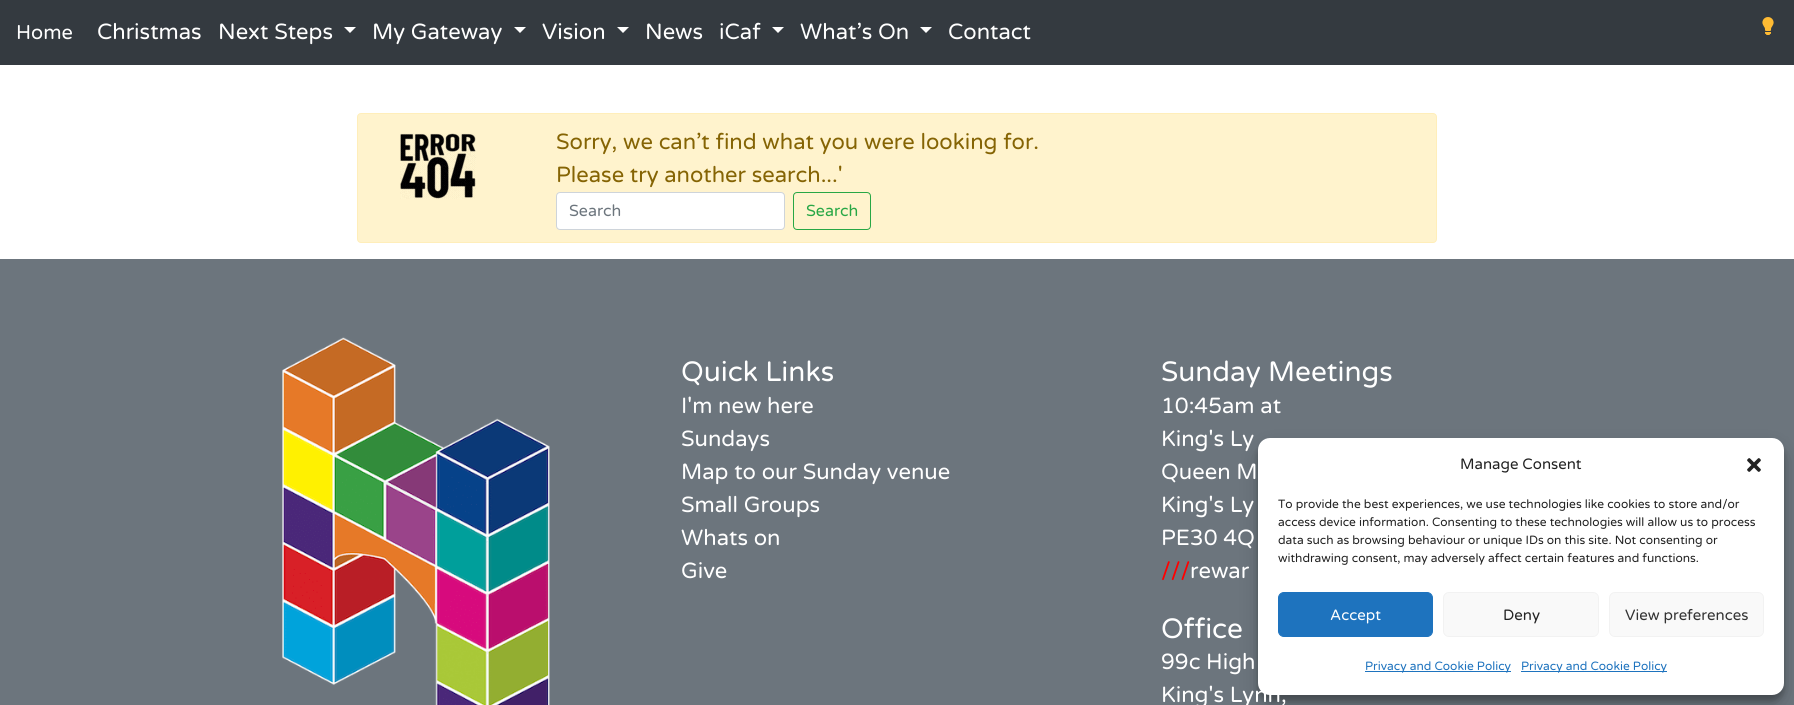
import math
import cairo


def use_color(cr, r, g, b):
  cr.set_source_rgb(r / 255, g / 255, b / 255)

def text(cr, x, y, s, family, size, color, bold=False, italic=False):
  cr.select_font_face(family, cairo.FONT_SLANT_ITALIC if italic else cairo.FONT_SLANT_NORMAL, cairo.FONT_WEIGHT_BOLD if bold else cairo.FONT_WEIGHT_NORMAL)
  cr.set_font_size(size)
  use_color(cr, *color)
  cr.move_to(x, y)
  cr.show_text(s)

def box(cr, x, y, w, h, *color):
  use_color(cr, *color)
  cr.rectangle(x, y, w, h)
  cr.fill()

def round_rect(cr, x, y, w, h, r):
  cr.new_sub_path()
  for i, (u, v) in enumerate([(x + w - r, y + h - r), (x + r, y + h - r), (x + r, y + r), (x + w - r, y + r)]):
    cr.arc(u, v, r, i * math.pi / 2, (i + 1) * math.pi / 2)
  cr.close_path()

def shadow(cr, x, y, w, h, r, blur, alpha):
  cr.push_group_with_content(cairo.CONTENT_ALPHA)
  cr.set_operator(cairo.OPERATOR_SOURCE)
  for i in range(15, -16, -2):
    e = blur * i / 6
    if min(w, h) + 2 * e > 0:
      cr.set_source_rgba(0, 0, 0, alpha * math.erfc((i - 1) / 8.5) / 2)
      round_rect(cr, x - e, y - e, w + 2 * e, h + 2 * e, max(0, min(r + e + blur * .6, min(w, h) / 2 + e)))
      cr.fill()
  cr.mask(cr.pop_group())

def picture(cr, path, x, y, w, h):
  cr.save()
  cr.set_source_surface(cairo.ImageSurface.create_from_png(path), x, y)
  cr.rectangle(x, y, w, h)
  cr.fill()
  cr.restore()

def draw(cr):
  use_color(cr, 255, 255, 255)
  cr.paint()
  box(cr, 0, 0, 1794, 65, 52, 58, 64)
  use_color(cr, 255, 255, 255)
  cr.new_path()
  cr.move_to(344, 27)
  cr.line_to(356, 27)
  cr.line_to(350, 33)
  cr.close_path()
  cr.fill()
  cr.new_path()
  cr.move_to(514, 27)
  cr.line_to(526, 27)
  cr.line_to(520, 33)
  cr.close_path()
  cr.fill()
  cr.new_path()
  cr.move_to(617, 27)
  cr.line_to(629, 27)
  cr.line_to(623, 33)
  cr.close_path()
  cr.fill()
  cr.new_path()
  cr.move_to(772, 27)
  cr.line_to(784, 27)
  cr.line_to(778, 33)
  cr.close_path()
  cr.fill()
  cr.new_path()
  cr.move_to(920, 27)
  cr.line_to(932, 27)
  cr.line_to(926, 33)
  cr.close_path()
  cr.fill()
  picture(cr, "img_01.png", 1762, 17, 12, 18)
  use_color(cr, 255, 243, 205)
  round_rect(cr, 357.5, 113.5, 1079, 129, 3.5)
  cr.fill_preserve()
  use_color(cr, 255, 238, 186)
  cr.set_line_width(1)
  cr.stroke()
  picture(cr, "img_02.png", 400, 133, 76, 66)
  use_color(cr, 255, 255, 255)
  round_rect(cr, 556.5, 192.5, 228, 37, 3.5)
  cr.fill_preserve()
  use_color(cr, 206, 212, 218)
  cr.stroke()
  round_rect(cr, 793.5, 192.5, 77, 37, 3.5)
  use_color(cr, 40, 167, 69)
  cr.stroke()
  box(cr, 0, 259, 1794, 446, 108, 117, 125)
  picture(cr, "img_03.png", 282, 337, 268, 368)
  use_color(cr, 0, 0, 0)
  shadow(cr, 1258, 444, 526, 257, 12, 3, 0.23)
  shadow(cr, 1258, 448, 526, 257, 12, 10, 0.19)
  use_color(cr, 255, 255, 255)
  round_rect(cr, 1258, 438, 526, 257, 12)
  cr.fill()
  picture(cr, "img_04.png", 1747, 458, 14, 14)
  use_color(cr, 30, 115, 190)
  round_rect(cr, 1278.5, 592.5, 154, 44, 5.5)
  cr.fill_preserve()
  cr.stroke()
  use_color(cr, 249, 249, 249)
  round_rect(cr, 1443.5, 592.5, 155, 44, 5.5)
  cr.fill_preserve()
  use_color(cr, 242, 242, 242)
  cr.stroke()
  use_color(cr, 249, 249, 249)
  round_rect(cr, 1609.5, 592.5, 154, 44, 5.5)
  cr.fill_preserve()
  use_color(cr, 242, 242, 242)
  cr.stroke()
  box(cr, 1365, 671, 146, 1, 30, 115, 190)
  box(cr, 1521, 671, 146, 1, 30, 115, 190)
  text(cr, 16, 39, "Home", "Varela Round", 20, (255, 255, 255))
  text(cr, 97, 39, "Christmas", "Varela Round", 22, (255, 255, 255))
  text(cr, 218, 39, "Next Steps", "Varela Round", 22, (255, 255, 255))
  text(cr, 372, 39, "My Gateway", "Varela Round", 22, (255, 255, 255))
  text(cr, 542, 39, "Vision", "Varela Round", 22, (255, 255, 255))
  text(cr, 645, 39, "News", "Varela Round", 22, (255, 255, 255))
  text(cr, 719, 39, "iCaf", "Varela Round", 22, (255, 255, 255))
  text(cr, 800, 39, "What’s On", "Varela Round", 22, (255, 255, 255))
  text(cr, 948, 39, "Contact", "Varela Round", 22, (255, 255, 255))
  text(cr, 556, 149, "Sorry, we can’t find what you were looking for.", "Varela Round", 22, (133, 100, 4))
  text(cr, 556, 182, "Please try another search...'", "Varela Round", 22, (133, 100, 4))
  text(cr, 569, 216, "Search", "Varela Round", 16, (108, 117, 125))
  text(cr, 806, 216, "Search", "Varela Round", 16, (40, 167, 69))
  text(cr, 681, 381, "Quick Links", "Varela Round", 28, (255, 255, 255))
  text(cr, 681, 413, "I'm new here", "Varela Round", 22, (255, 255, 255))
  text(cr, 681, 446, "Sundays", "Varela Round", 22, (255, 255, 255))
  text(cr, 681, 479, "Map to our Sunday venue", "Varela Round", 22, (255, 255, 255))
  text(cr, 681, 512, "Small Groups", "Varela Round", 22, (255, 255, 255))
  text(cr, 681, 545, "Whats on", "Varela Round", 22, (255, 255, 255))
  text(cr, 681, 578, "Give", "Varela Round", 22, (255, 255, 255))
  text(cr, 1161, 381, "Sunday Meetings", "Varela Round", 28, (255, 255, 255))
  text(cr, 1161, 413, "10:45am at", "Varela Round", 22, (255, 255, 255))
  text(cr, 1161, 446, "King's Ly", "Varela Round", 22, (255, 255, 255))
  text(cr, 1161, 479, "Queen M", "Varela Round", 22, (255, 255, 255))
  text(cr, 1161, 512, "King's Ly", "Varela Round", 22, (255, 255, 255))
  text(cr, 1161, 545, "PE30 4Q", "Varela Round", 22, (255, 255, 255))
  text(cr, 1161, 578, "///", "Varela Round", 22, (255, 0, 0))
  text(cr, 1190, 578, "rewar", "Varela Round", 22, (255, 255, 255))
  text(cr, 1161, 638, "Office", "Varela Round", 28, (255, 255, 255))
  text(cr, 1161, 669, "99c High", "Varela Round", 22, (255, 255, 255))
  text(cr, 1161, 702, "King's Lynn,", "Varela Round", 22, (255, 255, 255))
  text(cr, 1460, 469, "Manage Consent", "Varela Round", 15, (34, 34, 34))
  text(cr, 1278, 508, "To provide the best experiences, we use technologies like cookies to store and/or", "Varela Round", 12, (34, 34, 34))
  text(cr, 1278, 526, "access device information. Consenting to these technologies will allow us to process", "Varela Round", 12, (34, 34, 34))
  text(cr, 1278, 544, "data such as browsing behaviour or unique IDs on this site. Not consenting or", "Varela Round", 12, (34, 34, 34))
  text(cr, 1278, 562, "withdrawing consent, may adversely affect certain features and functions.", "Varela Round", 12, (34, 34, 34))
  text(cr, 1330, 620, "Accept", "Varela Round", 15, (255, 255, 255))
  text(cr, 1503, 620, "Deny", "Varela Round", 15, (34, 34, 34))
  text(cr, 1625, 620, "View preferences", "Varela Round", 15, (51, 51, 51))
  text(cr, 1365, 670, "Privacy and Cookie Policy", "Varela Round", 12, (30, 115, 190))
  text(cr, 1521, 670, "Privacy and Cookie Policy", "Varela Round", 12, (30, 115, 190))


surface = cairo.ImageSurface(cairo.FORMAT_RGB24, 1794, 705)
cr = cairo.Context(surface)
options = cairo.FontOptions()
options.set_hint_metrics(cairo.HINT_METRICS_OFF)
options.set_hint_style(cairo.HINT_STYLE_NONE)
cr.set_font_options(options)
cr.set_miter_limit(4)
draw(cr)
surface.write_to_png("out.png")
